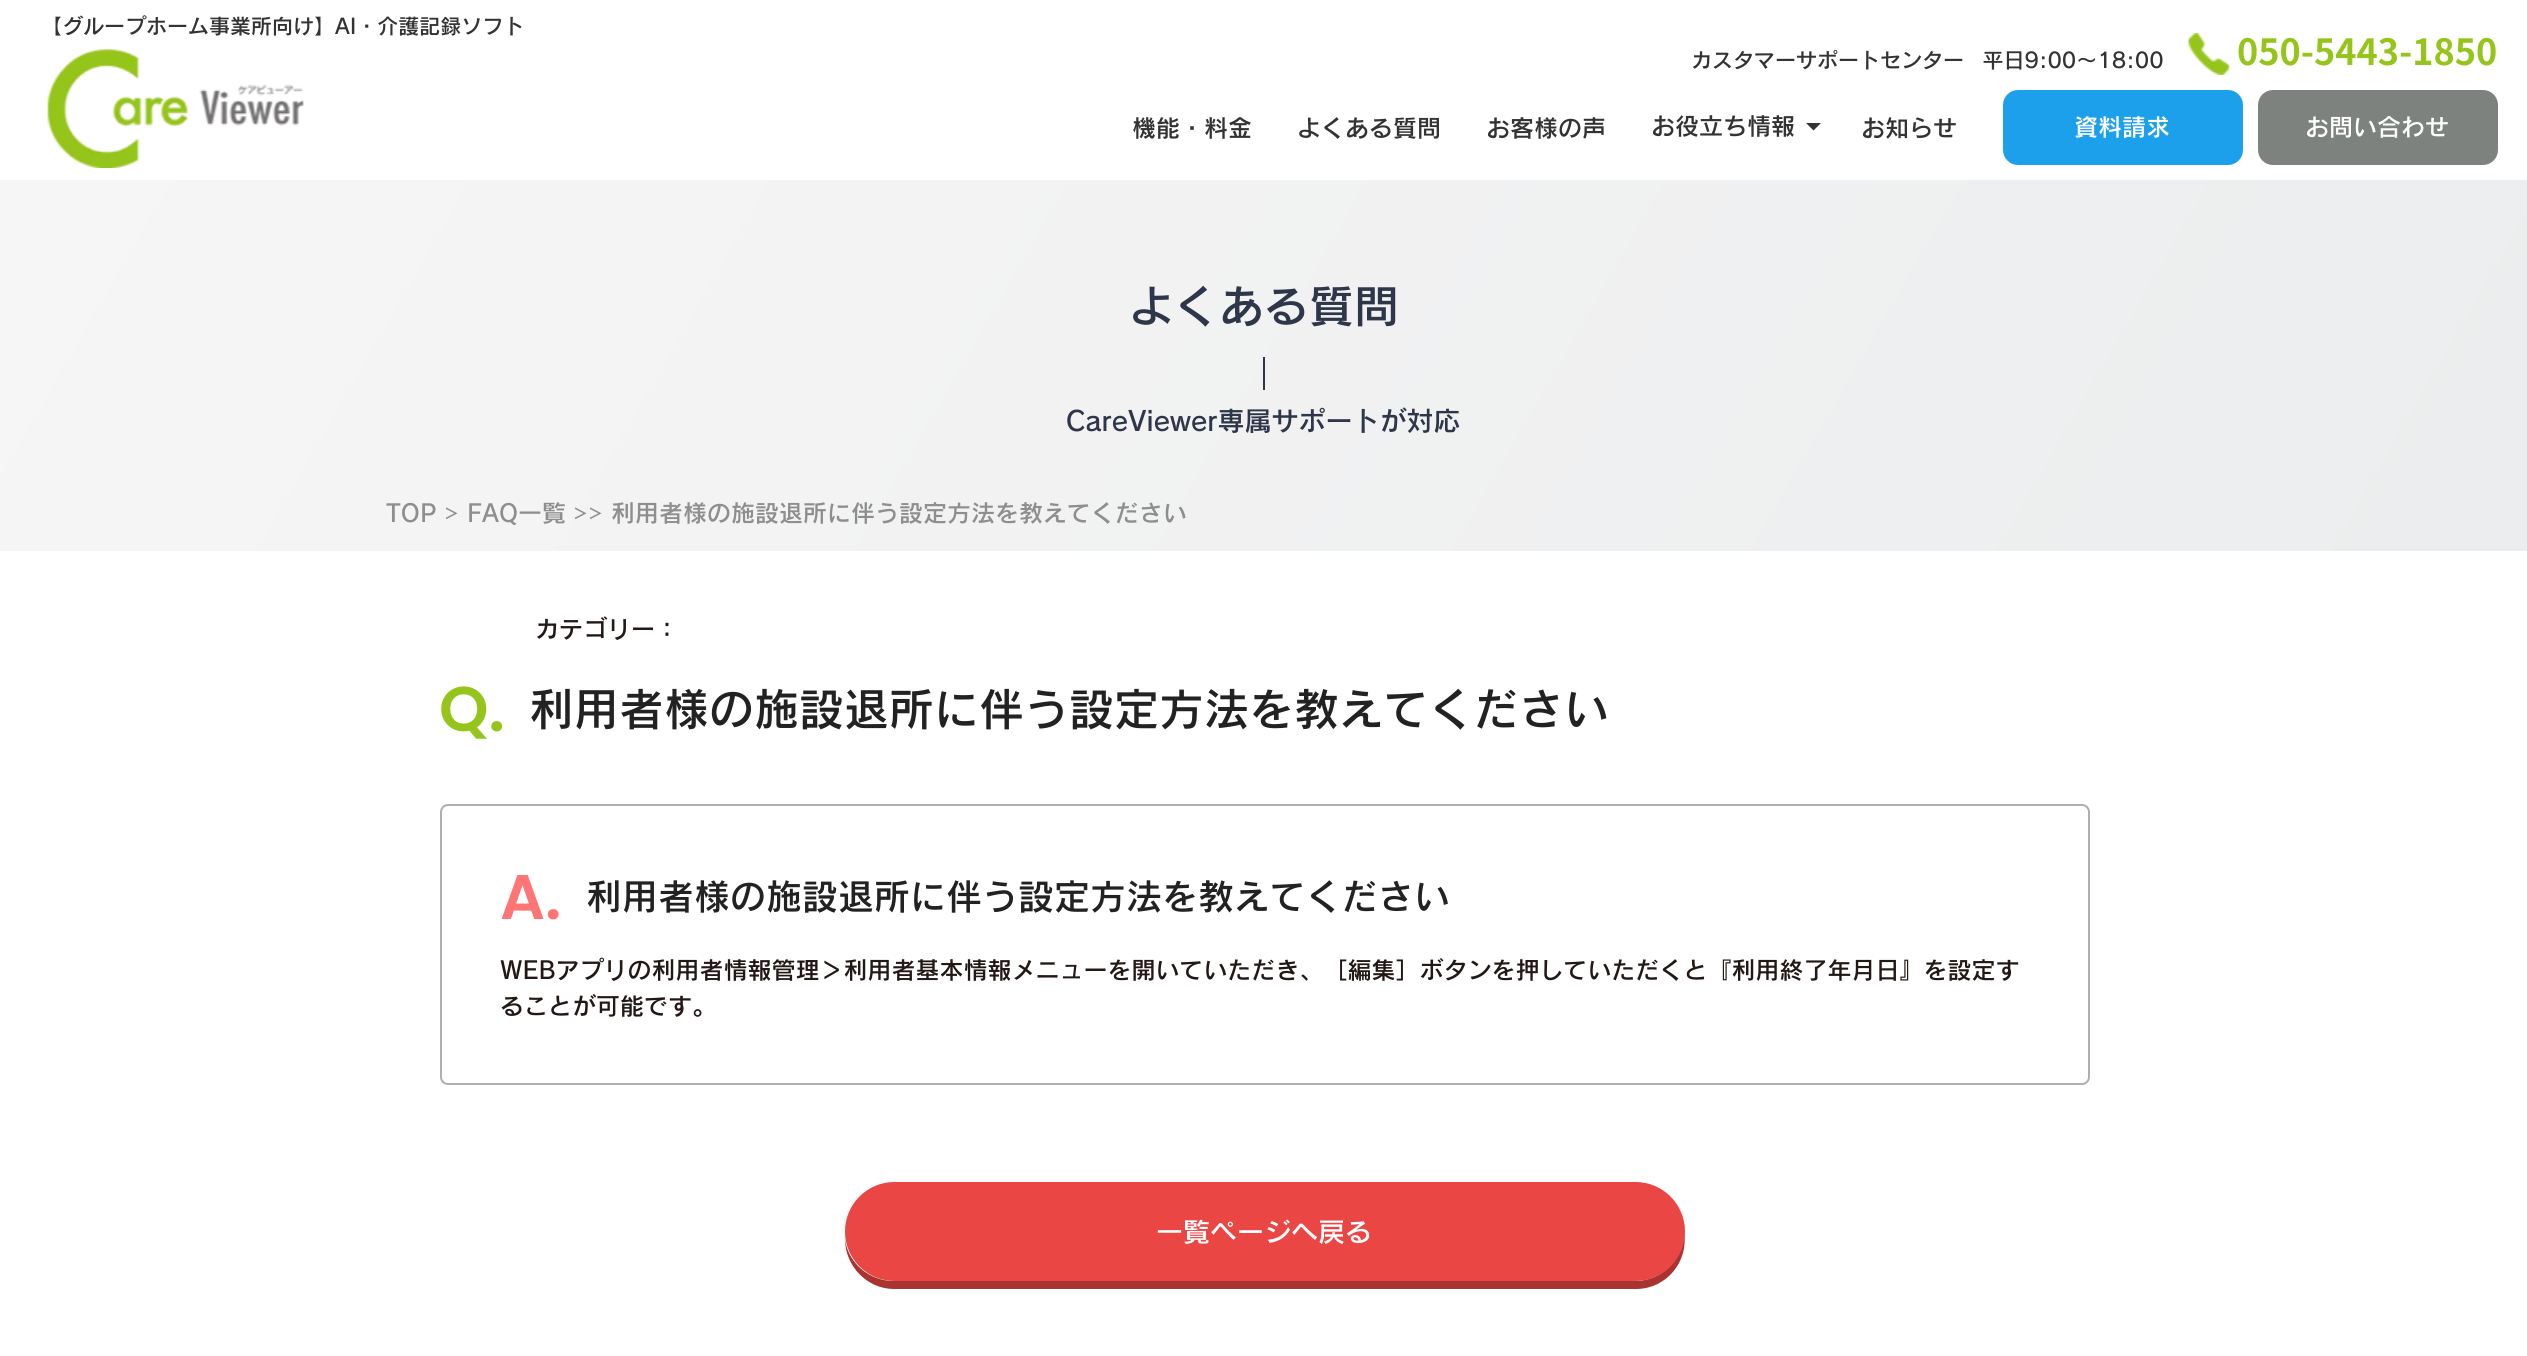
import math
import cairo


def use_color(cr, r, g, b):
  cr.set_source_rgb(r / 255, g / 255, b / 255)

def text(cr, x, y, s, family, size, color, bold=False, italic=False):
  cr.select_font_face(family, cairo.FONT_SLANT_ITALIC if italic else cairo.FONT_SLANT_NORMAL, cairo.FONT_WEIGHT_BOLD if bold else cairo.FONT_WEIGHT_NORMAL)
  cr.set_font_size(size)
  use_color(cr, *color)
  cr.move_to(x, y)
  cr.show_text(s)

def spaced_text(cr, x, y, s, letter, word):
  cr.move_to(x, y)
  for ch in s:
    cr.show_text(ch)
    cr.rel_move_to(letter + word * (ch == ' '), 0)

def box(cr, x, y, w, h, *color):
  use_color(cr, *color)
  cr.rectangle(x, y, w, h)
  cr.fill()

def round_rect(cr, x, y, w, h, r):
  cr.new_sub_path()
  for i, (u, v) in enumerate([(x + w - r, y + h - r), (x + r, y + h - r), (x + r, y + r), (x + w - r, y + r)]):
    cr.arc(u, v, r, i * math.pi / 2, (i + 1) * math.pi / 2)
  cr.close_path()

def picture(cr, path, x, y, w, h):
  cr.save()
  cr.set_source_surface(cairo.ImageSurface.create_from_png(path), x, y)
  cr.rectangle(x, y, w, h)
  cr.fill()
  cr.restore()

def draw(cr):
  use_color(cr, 255, 255, 255)
  cr.paint()
  picture(cr, "img_01.png", 47, 49, 257, 119)
  picture(cr, "img_02.png", 2188, 33, 42, 42)
  use_color(cr, 51, 51, 51)
  cr.new_path()
  cr.move_to(1821, 123)
  cr.line_to(1813.5, 130.5)
  cr.line_to(1806, 123)
  cr.close_path()
  cr.fill()
  use_color(cr, 29, 160, 236)
  round_rect(cr, 2004, 91, 238, 73, 14)
  cr.fill_preserve()
  cr.stroke()
  use_color(cr, 125, 130, 126)
  round_rect(cr, 2259, 91, 238, 73, 14)
  cr.fill_preserve()
  cr.stroke()
  gradient = cairo.LinearGradient(236, -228, 2292, 959)
  gradient.add_color_stop_rgba(0, 0.969, 0.965, 0.965, 1)
  gradient.add_color_stop_rgba(1, 0.922, 0.929, 0.933, 1)
  cr.set_source(gradient)
  cr.rectangle(0, 180, 2527, 371)
  cr.fill()
  box(cr, 1263, 357, 2, 33, 46, 54, 74)
  round_rect(cr, 441, 805, 1648, 279, 7)
  use_color(cr, 174, 174, 174)
  cr.stroke()
  use_color(cr, 169, 51, 49)
  cr.new_path()
  cr.move_to(845, 1239)
  cr.curve_to(845, 1266, 867, 1289, 894, 1289)
  cr.line_to(1636, 1289)
  cr.curve_to(1666, 1289, 1689, 1262, 1684, 1232)
  cr.curve_to(1684, 1259, 1662, 1281, 1635, 1281)
  cr.line_to(894, 1281)
  cr.curve_to(869, 1281, 848, 1263, 845, 1239)
  cr.close_path()
  cr.fill()
  use_color(cr, 233, 70, 68)
  round_rect(cr, 846, 1183, 838, 97, 48.5)
  cr.fill_preserve()
  cr.stroke()
  text(cr, 41, 34, "【グループホーム事業所向け】AI・介護記録ソフト", "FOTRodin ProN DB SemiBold", 21, (51, 51, 51))
  spaced_text(cr, 1691, 68, "カスタマーサポートセンター  平日9:00〜18:00", 0, 2)
  text(cr, 2237, 65, "050-5443-1850", "Noto Sans SC", 36, (149, 197, 27), bold=True)
  text(cr, 1132, 137, "機能・料金", "FOTRodin ProN DB SemiBold", 24, (51, 51, 51))
  text(cr, 1297, 137, "よくある質問", "FOTRodin ProN DB SemiBold", 24, (51, 51, 51))
  text(cr, 1486, 137, "お客様の声", "FOTRodin ProN DB SemiBold", 24, (51, 51, 51))
  text(cr, 1651, 135, "お役立ち情報", "FOTRodin ProN DB SemiBold", 24, (51, 51, 51))
  text(cr, 1861, 137, "お知らせ", "FOTRodin ProN DB SemiBold", 24, (51, 51, 51))
  text(cr, 2074, 136, "資料請求", "FOTRodin ProN DB SemiBold", 24, (255, 255, 255))
  text(cr, 2305, 136, "お問い合わせ", "FOTRodin ProN DB SemiBold", 24, (255, 255, 255))
  text(cr, 1129, 323, "よくある質問", "FOTRodin ProN DB SemiBold", 45, (46, 54, 74))
  text(cr, 1066, 431, "CareViewer専属サポートが対応", "FOTRodin ProN DB SemiBold", 27, (46, 54, 74))
  text(cr, 386, 522, "TOP", "FOTRodin ProN DB SemiBold", 24, (142, 142, 142))
  text(cr, 444, 519, "＞", "Noto Sans JP", 15, (142, 142, 142), bold=True)
  text(cr, 467, 522, "FAQ一覧", "FOTRodin ProN DB SemiBold", 24, (142, 142, 142))
  text(cr, 573, 519, "＞＞", "Noto Sans JP", 15, (142, 142, 142), bold=True)
  text(cr, 611, 522, "利用者様の施設退所に伴う設定方法を教えてください", "FOTRodin ProN DB SemiBold", 24, (142, 142, 142))
  text(cr, 535, 638, "カテゴリー：", "FOTRodin ProN DB SemiBold", 24, (34, 24, 21))
  text(cr, 439, 731, "Q.", "Poppins SemiBold", 63, (149, 197, 27))
  text(cr, 529, 726, "利用者様の施設退所に伴う設定方法を教えてください", "FOTRodin ProN DB SemiBold", 45, (34, 34, 34))
  text(cr, 500, 919, "A.", "Poppins SemiBold", 63, (253, 117, 117))
  text(cr, 586, 910, "利用者様の施設退所に伴う設定方法を教えてください", "FOTRodin ProN DB SemiBold", 36, (34, 34, 34))
  text(cr, 500, 979, "WEBアプリの利用者情報管理＞利用者基本情報メニューを開いていただき、［編集］ボタンを押していただくと『利用終了年月日』を設定す", "FOTRodin ProN DB SemiBold", 24, (34, 24, 21))
  text(cr, 500, 1015, "ることが可能です。", "FOTRodin ProN DB SemiBold", 24, (34, 24, 21))
  text(cr, 1156, 1242, "一覧ページへ戻る", "FOTRodin ProN DB SemiBold", 27, (255, 255, 255))


surface = cairo.ImageSurface(cairo.FORMAT_RGB24, 2527, 1356)
cr = cairo.Context(surface)
options = cairo.FontOptions()
options.set_hint_metrics(cairo.HINT_METRICS_OFF)
options.set_hint_style(cairo.HINT_STYLE_NONE)
cr.set_font_options(options)
cr.set_miter_limit(4)
draw(cr)
surface.write_to_png("out.png")
